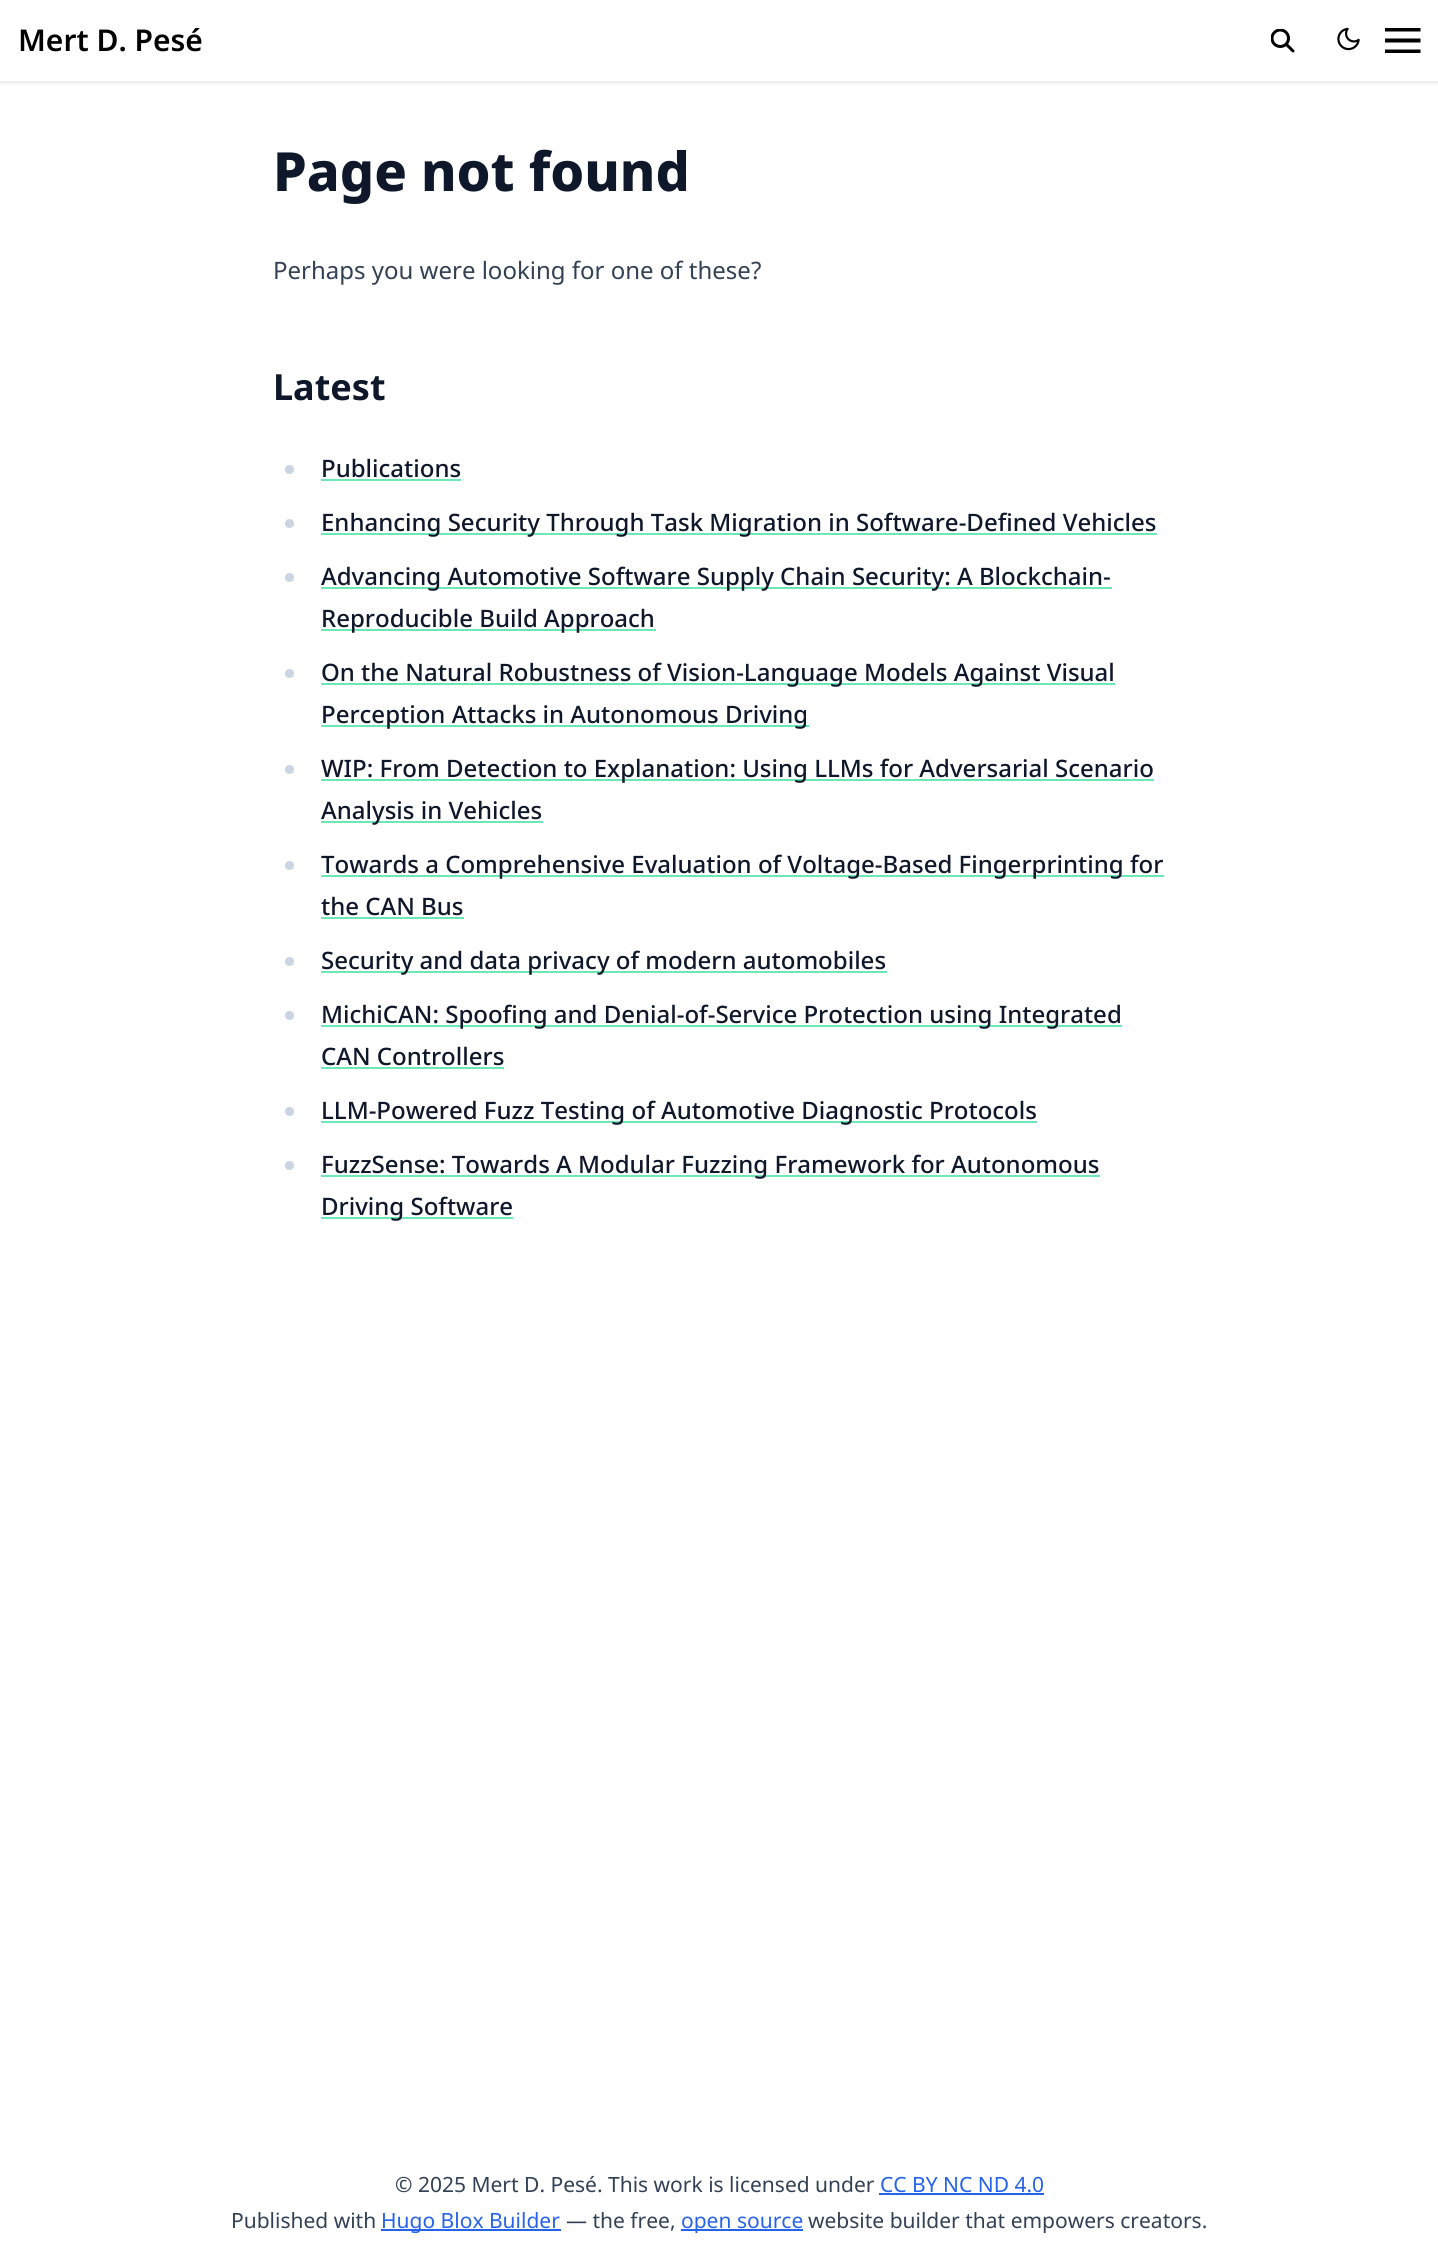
import math
import cairo


def use_color(cr, r, g, b):
  cr.set_source_rgb(r / 255, g / 255, b / 255)

def text(cr, x, y, s, family, size, color, bold=False, italic=False):
  cr.select_font_face(family, cairo.FONT_SLANT_ITALIC if italic else cairo.FONT_SLANT_NORMAL, cairo.FONT_WEIGHT_BOLD if bold else cairo.FONT_WEIGHT_NORMAL)
  cr.set_font_size(size)
  use_color(cr, *color)
  cr.move_to(x, y)
  cr.show_text(s)

def box(cr, x, y, w, h, *color):
  use_color(cr, *color)
  cr.rectangle(x, y, w, h)
  cr.fill()

def round_rect(cr, x, y, w, h, r):
  cr.new_sub_path()
  for i, (u, v) in enumerate([(x + w - r, y + h - r), (x + r, y + h - r), (x + r, y + r), (x + w - r, y + r)]):
    cr.arc(u, v, r, i * math.pi / 2, (i + 1) * math.pi / 2)
  cr.close_path()

def shadow(cr, x, y, w, h, r, blur, alpha):
  cr.push_group_with_content(cairo.CONTENT_ALPHA)
  cr.set_operator(cairo.OPERATOR_SOURCE)
  for i in range(15, -16, -2):
    e = blur * i / 6
    if min(w, h) + 2 * e > 0:
      cr.set_source_rgba(0, 0, 0, alpha * math.erfc((i - 1) / 8.5) / 2)
      round_rect(cr, x - e, y - e, w + 2 * e, h + 2 * e, max(0, min(r + e + blur * .6, min(w, h) / 2 + e)))
      cr.fill()
  cr.mask(cr.pop_group())

def picture(cr, path, x, y, w, h):
  cr.save()
  cr.set_source_surface(cairo.ImageSurface.create_from_png(path), x, y)
  cr.rectangle(x, y, w, h)
  cr.fill()
  cr.restore()

def draw(cr):
  use_color(cr, 255, 255, 255)
  cr.paint()
  cr.save()
  cr.rectangle(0, 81, 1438, 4)
  cr.clip()
  use_color(cr, 0, 0, 0)
  shadow(cr, 0, 2, 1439, 81, 0, 2, 0.1)
  cr.restore()
  picture(cr, "img_01.png", 1271, 29, 24, 24)
  picture(cr, "img_02.png", 1337, 27, 23, 24)
  cr.save()
  cr.rectangle(1385, 23, 36, 36)
  cr.clip()
  use_color(cr, 0, 0, 0)
  cr.new_path()
  cr.move_to(1384.5, 28)
  cr.line_to(1420.5, 28)
  cr.line_to(1420.5, 31.5)
  cr.line_to(1384.5, 31.5)
  cr.close_path()
  cr.move_to(1384.5, 38.5)
  cr.line_to(1420.5, 38.5)
  cr.line_to(1420.5, 42.5)
  cr.line_to(1384.5, 42.5)
  cr.close_path()
  cr.move_to(1384.5, 49.5)
  cr.line_to(1420.5, 49.5)
  cr.line_to(1420.5, 53)
  cr.line_to(1384.5, 53)
  cr.line_to(1384.5, 22.5)
  cr.close_path()
  cr.fill()
  cr.restore()
  use_color(cr, 203, 213, 225)
  cr.arc(289.5, 469.5, 4.5, 0, 2 * math.pi)
  cr.fill()
  box(cr, 321, 479, 140, 2, 110, 231, 183)
  use_color(cr, 203, 213, 225)
  cr.arc(289.5, 523.5, 4.5, 0, 2 * math.pi)
  cr.fill()
  box(cr, 321, 533, 836, 2, 110, 231, 183)
  use_color(cr, 203, 213, 225)
  cr.arc(289.5, 577.5, 4.5, 0, 2 * math.pi)
  cr.fill()
  box(cr, 321, 587, 791, 2, 110, 231, 183)
  box(cr, 321, 629, 335, 2, 110, 231, 183)
  use_color(cr, 203, 213, 225)
  cr.arc(289.5, 673.5, 4.5, 0, 2 * math.pi)
  cr.fill()
  box(cr, 321, 683, 794, 2, 110, 231, 183)
  box(cr, 321, 725, 488, 2, 110, 231, 183)
  use_color(cr, 203, 213, 225)
  cr.arc(289.5, 769.5, 4.5, 0, 2 * math.pi)
  cr.fill()
  box(cr, 321, 779, 833, 2, 110, 231, 183)
  box(cr, 321, 821, 222, 2, 110, 231, 183)
  use_color(cr, 203, 213, 225)
  cr.arc(289.5, 865.5, 4.5, 0, 2 * math.pi)
  cr.fill()
  box(cr, 321, 875, 843, 2, 110, 231, 183)
  box(cr, 321, 917, 143, 2, 110, 231, 183)
  use_color(cr, 203, 213, 225)
  cr.arc(289.5, 961.5, 4.5, 0, 2 * math.pi)
  cr.fill()
  box(cr, 321, 971, 566, 2, 110, 231, 183)
  use_color(cr, 203, 213, 225)
  cr.arc(289.5, 1015.5, 4.5, 0, 2 * math.pi)
  cr.fill()
  box(cr, 321, 1025, 801, 2, 110, 231, 183)
  box(cr, 321, 1067, 183, 2, 110, 231, 183)
  use_color(cr, 203, 213, 225)
  cr.arc(289.5, 1111.5, 4.5, 0, 2 * math.pi)
  cr.fill()
  box(cr, 321, 1121, 716, 2, 110, 231, 183)
  use_color(cr, 203, 213, 225)
  cr.arc(289.5, 1165.5, 4.5, 0, 2 * math.pi)
  cr.fill()
  box(cr, 321, 1175, 779, 2, 110, 231, 183)
  box(cr, 321, 1217, 192, 2, 110, 231, 183)
  box(cr, 879, 2193, 165, 2, 37, 99, 235)
  box(cr, 381, 2229, 180, 2, 37, 99, 235)
  box(cr, 681, 2229, 122, 2, 37, 99, 235)
  text(cr, 18, 51, "Mert D. Pesé", "Noto Sans SemiBold", 30, (0, 0, 0))
  text(cr, 273, 191, "Page not found", "Noto Sans ExtraBold", 54, (15, 23, 42))
  text(cr, 273, 279, "Perhaps you were looking for one of these?", "Noto Sans", 24, (51, 65, 85))
  text(cr, 273, 400, "Latest", "Noto Sans", 36, (15, 23, 42), bold=True)
  text(cr, 321, 477, "Publications", "Noto Sans Medium", 24, (15, 23, 42))
  text(cr, 321, 531, "Enhancing Security Through Task Migration in Software-Defined Vehicles", "Noto Sans Medium", 24, (15, 23, 42))
  text(cr, 321, 585, "Advancing Automotive Software Supply Chain Security: A Blockchain-", "Noto Sans Medium", 24, (15, 23, 42))
  text(cr, 321, 627, "Reproducible Build Approach", "Noto Sans Medium", 24, (15, 23, 42))
  text(cr, 321, 681, "On the Natural Robustness of Vision-Language Models Against Visual", "Noto Sans Medium", 24, (15, 23, 42))
  text(cr, 321, 723, "Perception Attacks in Autonomous Driving", "Noto Sans Medium", 24, (15, 23, 42))
  text(cr, 321, 777, "WIP: From Detection to Explanation: Using LLMs for Adversarial Scenario", "Noto Sans Medium", 24, (15, 23, 42))
  text(cr, 321, 819, "Analysis in Vehicles", "Noto Sans Medium", 24, (15, 23, 42))
  text(cr, 321, 873, "Towards a Comprehensive Evaluation of Voltage-Based Fingerprinting for", "Noto Sans Medium", 24, (15, 23, 42))
  text(cr, 321, 915, "the CAN Bus", "Noto Sans Medium", 24, (15, 23, 42))
  text(cr, 321, 969, "Security and data privacy of modern automobiles", "Noto Sans Medium", 24, (15, 23, 42))
  text(cr, 321, 1023, "MichiCAN: Spoofing and Denial-of-Service Protection using Integrated", "Noto Sans Medium", 24, (15, 23, 42))
  text(cr, 321, 1065, "CAN Controllers", "Noto Sans Medium", 24, (15, 23, 42))
  text(cr, 321, 1119, "LLM-Powered Fuzz Testing of Automotive Diagnostic Protocols", "Noto Sans Medium", 24, (15, 23, 42))
  text(cr, 321, 1173, "FuzzSense: Towards A Modular Fuzzing Framework for Autonomous", "Noto Sans Medium", 24, (15, 23, 42))
  text(cr, 321, 1215, "Driving Software", "Noto Sans Medium", 24, (15, 23, 42))
  text(cr, 395, 2192, "© 2025 Mert D. Pesé. This work is licensed under", "Noto Sans", 21, (51, 65, 85))
  text(cr, 880, 2192, "CC BY NC ND 4.0", "Noto Sans", 21, (37, 99, 235))
  text(cr, 231, 2228, "Published with", "Noto Sans", 21, (51, 65, 85))
  text(cr, 381, 2228, "Hugo Blox Builder", "Noto Sans", 21, (37, 99, 235))
  text(cr, 566, 2228, "— the free,", "Noto Sans", 21, (51, 65, 85))
  text(cr, 681, 2228, "open source", "Noto Sans", 21, (37, 99, 235))
  text(cr, 808, 2228, "website builder that empowers creators.", "Noto Sans", 21, (51, 65, 85))


surface = cairo.ImageSurface(cairo.FORMAT_RGB24, 1438, 2262)
cr = cairo.Context(surface)
options = cairo.FontOptions()
options.set_hint_metrics(cairo.HINT_METRICS_OFF)
options.set_hint_style(cairo.HINT_STYLE_NONE)
cr.set_font_options(options)
cr.set_miter_limit(4)
draw(cr)
surface.write_to_png("out.png")
